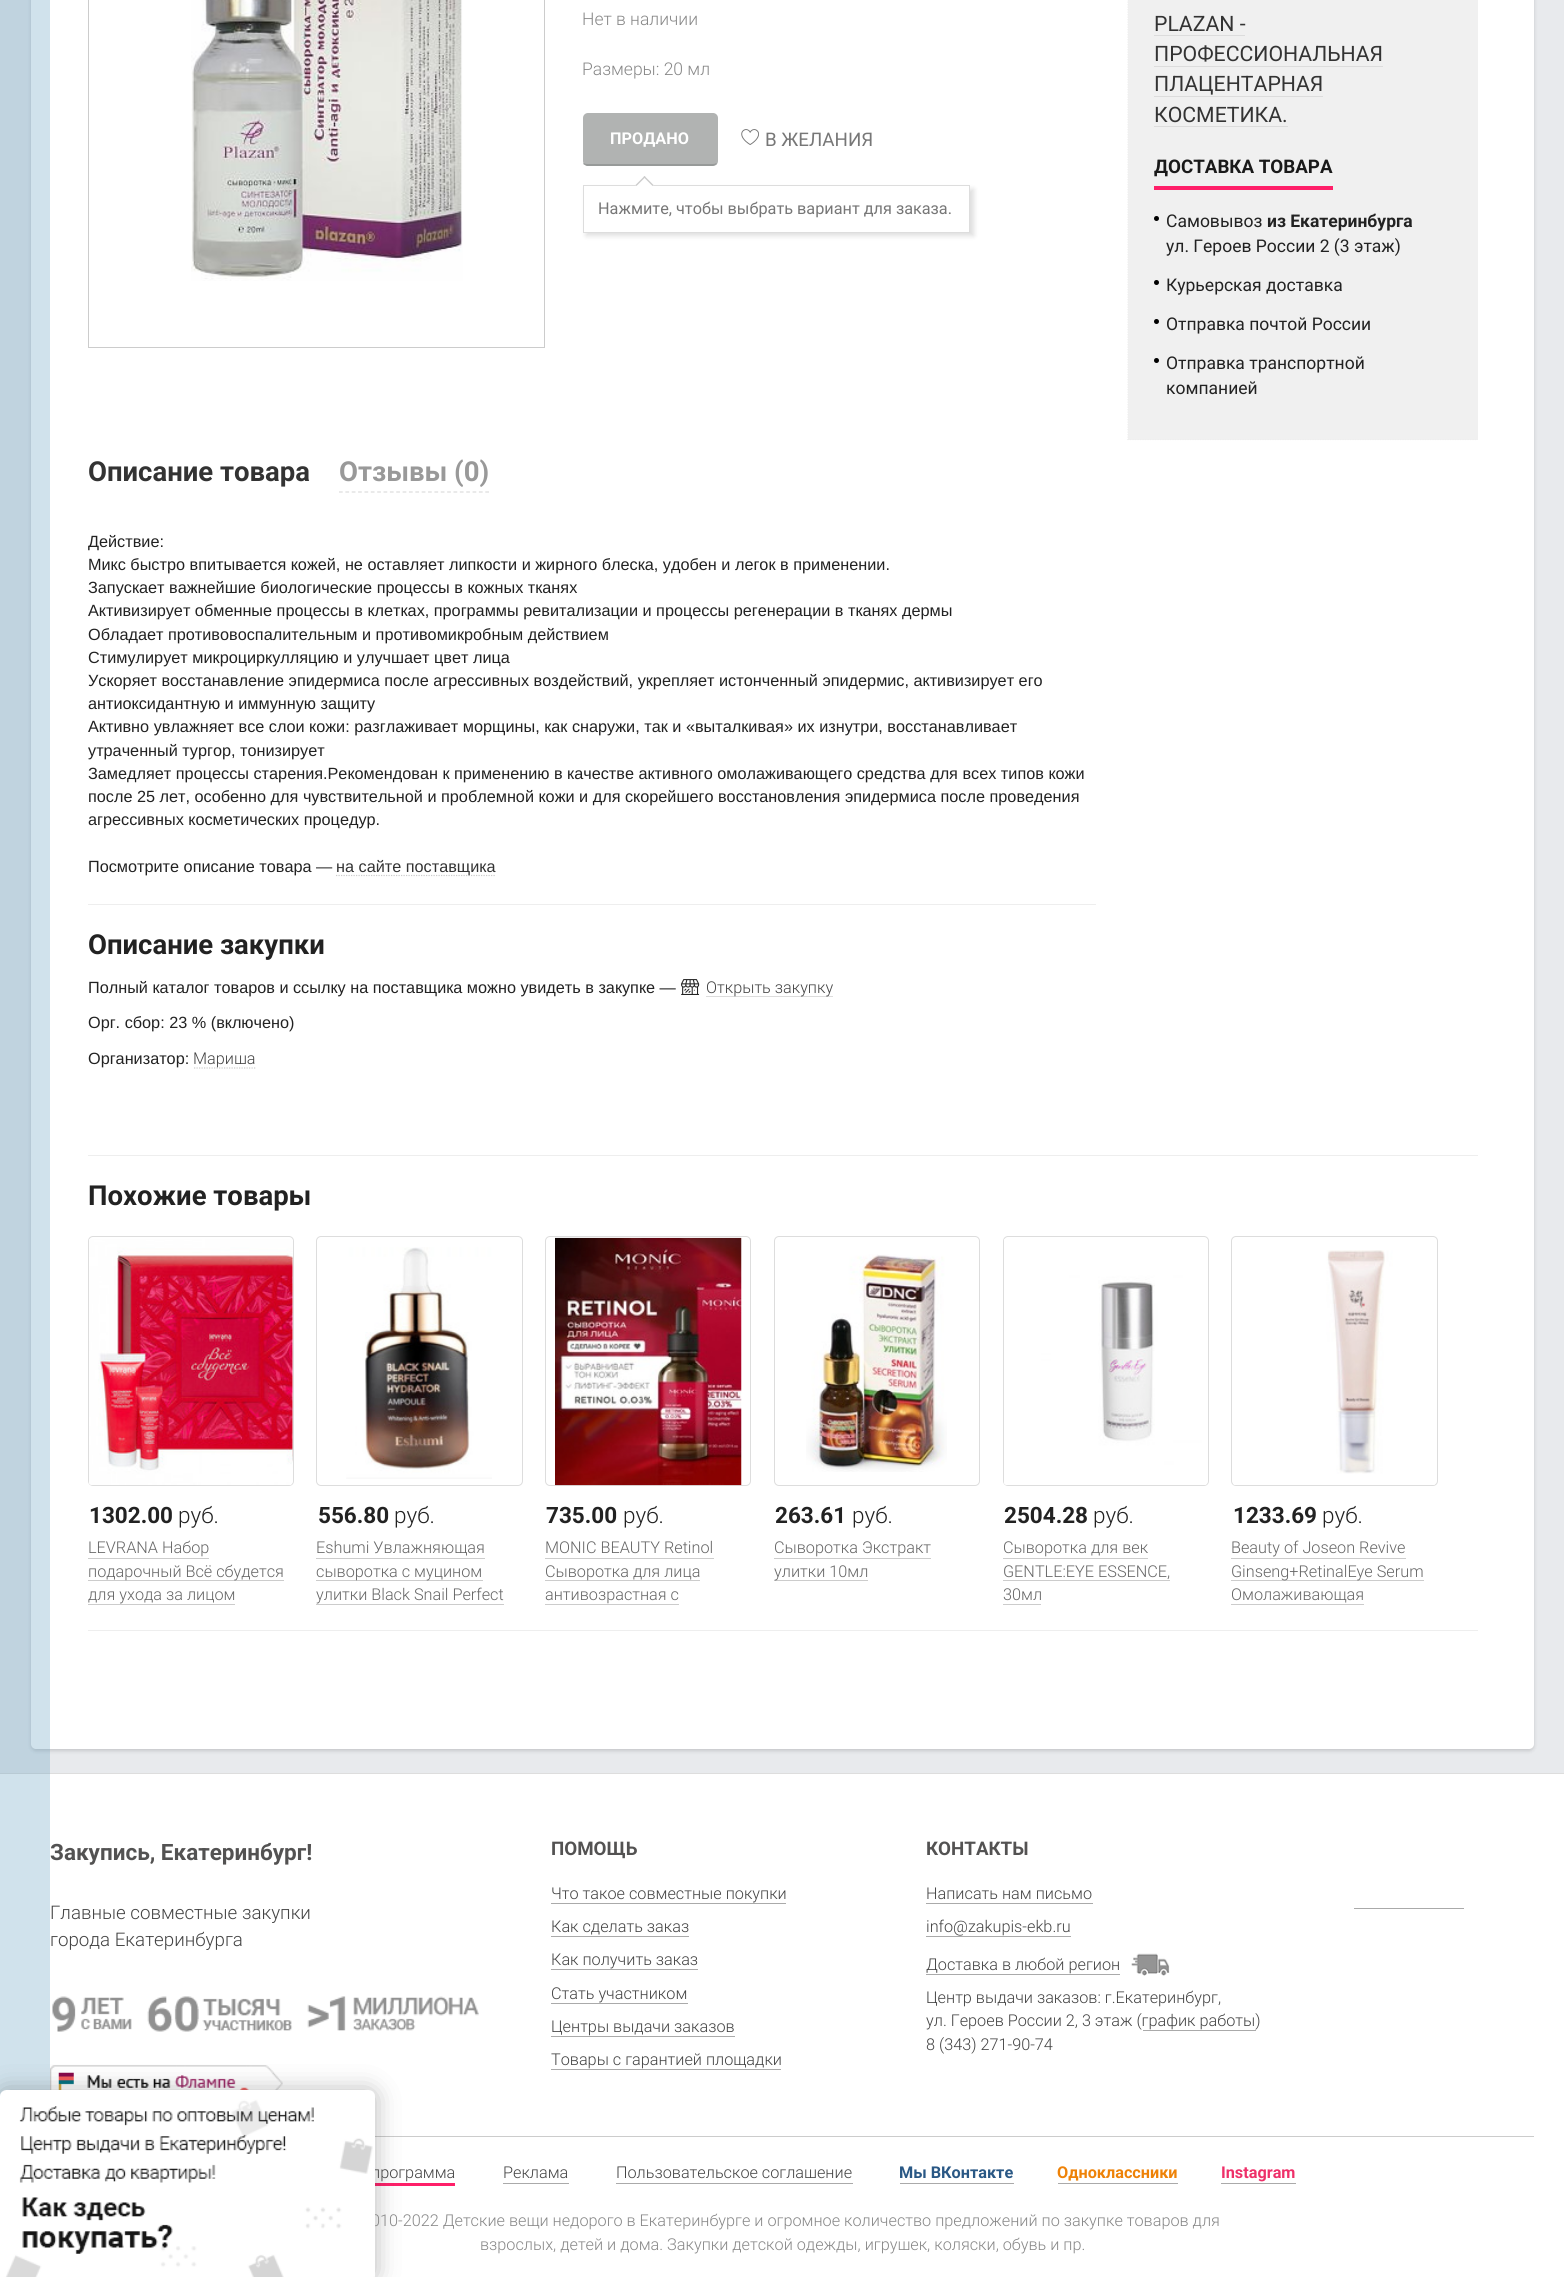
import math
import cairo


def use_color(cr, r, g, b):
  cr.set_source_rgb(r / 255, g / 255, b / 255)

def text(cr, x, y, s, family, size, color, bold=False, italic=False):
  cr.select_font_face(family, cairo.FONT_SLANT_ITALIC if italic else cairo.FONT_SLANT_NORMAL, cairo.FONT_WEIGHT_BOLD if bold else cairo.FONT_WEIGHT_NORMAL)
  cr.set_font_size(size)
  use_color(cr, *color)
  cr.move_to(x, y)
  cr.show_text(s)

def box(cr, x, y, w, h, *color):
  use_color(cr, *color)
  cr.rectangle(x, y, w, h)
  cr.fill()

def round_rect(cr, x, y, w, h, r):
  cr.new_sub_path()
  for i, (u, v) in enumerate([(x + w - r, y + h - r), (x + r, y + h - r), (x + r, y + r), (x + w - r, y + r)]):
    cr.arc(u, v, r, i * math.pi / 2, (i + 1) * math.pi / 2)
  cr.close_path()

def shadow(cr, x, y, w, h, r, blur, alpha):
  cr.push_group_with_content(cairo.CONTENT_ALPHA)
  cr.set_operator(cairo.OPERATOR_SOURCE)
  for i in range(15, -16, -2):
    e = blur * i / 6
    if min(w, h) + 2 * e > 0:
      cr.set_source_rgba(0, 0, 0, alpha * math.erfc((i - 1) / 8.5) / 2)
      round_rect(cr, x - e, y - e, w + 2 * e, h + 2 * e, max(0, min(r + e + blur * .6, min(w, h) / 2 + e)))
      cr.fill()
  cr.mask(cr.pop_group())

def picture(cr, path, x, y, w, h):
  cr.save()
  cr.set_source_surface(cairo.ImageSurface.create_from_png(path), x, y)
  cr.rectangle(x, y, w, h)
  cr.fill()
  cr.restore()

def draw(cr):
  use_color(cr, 232, 234, 237)
  cr.paint()
  use_color(cr, 0, 0, 0)
  shadow(cr, 31, -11, 1503, 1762, 5, 2, 0.15)
  use_color(cr, 255, 255, 255)
  round_rect(cr, 31, -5, 1503, 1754, 5)
  cr.fill()
  box(cr, 0, 1774, 1564, 503, 255, 255, 255)
  box(cr, 0, 1773, 1564, 1, 221, 221, 221)
  cr.set_source_rgba(0.388, 0.612, 0.749, 0.3)
  cr.rectangle(0, 0, 50, 2096)
  cr.fill()
  cr.rectangle(88.5, -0.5, 456, 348)
  use_color(cr, 204, 204, 204)
  cr.set_line_width(1)
  cr.stroke()
  picture(cr, "img_01.png", 191, 0, 272, 281)
  use_color(cr, 177, 179, 178)
  round_rect(cr, 583, 113, 135, 53, 5)
  cr.fill()
  use_color(cr, 151, 154, 153)
  cr.new_path()
  cr.move_to(717, 164)
  cr.line_to(713, 166)
  cr.line_to(587, 166)
  cr.line_to(583, 164)
  cr.line_to(584, 163)
  cr.curve_to(585, 164, 586, 164, 588, 164)
  cr.line_to(712, 164)
  cr.curve_to(714, 164, 715, 164, 716, 163)
  cr.close_path()
  cr.fill()
  picture(cr, "img_02.png", 741, 129, 18, 16)
  use_color(cr, 0, 0, 0)
  shadow(cr, 586, 189, 388, 47, 0, 2.5, 0.13)
  use_color(cr, 255, 255, 255)
  cr.rectangle(583.5, 185.5, 386, 47)
  cr.fill_preserve()
  use_color(cr, 221, 221, 221)
  cr.stroke()
  use_color(cr, 255, 255, 255)
  cr.new_path()
  cr.move_to(644.5, 176)
  cr.line_to(653.5, 185)
  cr.line_to(644.5, 194)
  cr.line_to(635.5, 185)
  cr.close_path()
  cr.fill()
  use_color(cr, 204, 204, 204)
  cr.new_path()
  cr.move_to(644.5, 176)
  cr.line_to(653.5, 185)
  cr.line_to(652.5, 186)
  cr.line_to(643.5, 177)
  cr.close_path()
  cr.fill()
  cr.new_path()
  cr.move_to(644.5, 176)
  cr.line_to(645.5, 177)
  cr.line_to(636.5, 186)
  cr.line_to(635.5, 185)
  cr.close_path()
  cr.fill()
  box(cr, 1128, 0, 350, 440, 240, 240, 240)
  cr.new_path()
  cr.move_to(1127.5, 439.5)
  cr.line_to(1477.5, 439.5)
  use_color(cr, 238, 238, 238)
  cr.set_line_width(1.2)
  cr.set_dash([1.25, 1.25])
  cr.stroke()
  cr.new_path()
  cr.move_to(1128, -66)
  cr.line_to(1128, 440)
  cr.stroke()
  box(cr, 1154, 35, 91, 1, 220, 220, 220)
  box(cr, 1154, 66, 229, 1, 220, 220, 220)
  box(cr, 1154, 96, 169, 1, 220, 220, 220)
  box(cr, 1154, 126, 134, 1, 220, 220, 220)
  box(cr, 1154, 186, 179, 4, 255, 31, 105)
  use_color(cr, 0, 0, 0)
  cr.arc(1156.5, 218.5, 2.5, 0, 2 * math.pi)
  cr.fill()
  cr.arc(1156.5, 282.5, 2.5, 0, 2 * math.pi)
  cr.fill()
  cr.arc(1156.5, 321.5, 2.5, 0, 2 * math.pi)
  cr.fill()
  cr.arc(1156.5, 360.5, 2.5, 0, 2 * math.pi)
  cr.fill()
  cr.new_path()
  cr.move_to(339, 492)
  cr.line_to(489, 492)
  use_color(cr, 221, 221, 221)
  cr.set_dash([3.75, 2.61])
  cr.stroke()
  cr.new_path()
  cr.move_to(336, 875.5)
  cr.line_to(496, 875.5)
  use_color(cr, 204, 204, 204)
  cr.set_dash([1.25, 1.25])
  cr.stroke()
  box(cr, 88, 904, 1008, 1, 238, 238, 238)
  picture(cr, "img_03.png", 681, 979, 19, 16)
  box(cr, 706, 996, 127, 1, 220, 220, 220)
  cr.new_path()
  cr.move_to(194, 1068)
  cr.line_to(256, 1068)
  use_color(cr, 204, 204, 204)
  cr.stroke()
  box(cr, 88, 1155, 1390, 1, 238, 238, 238)
  round_rect(cr, 88.5, 1236.5, 205, 249, 4.5)
  use_color(cr, 221, 221, 221)
  cr.set_line_width(1)
  cr.set_dash([])
  cr.stroke()
  picture(cr, "img_04.png", 89, 1239, 204, 246)
  box(cr, 88, 1558, 121, 1, 204, 204, 204)
  box(cr, 88, 1580, 196, 1, 204, 204, 204)
  box(cr, 88, 1604, 147, 1, 204, 204, 204)
  round_rect(cr, 316.5, 1236.5, 206, 249, 4.5)
  use_color(cr, 221, 221, 221)
  cr.stroke()
  picture(cr, "img_05.png", 346, 1247, 146, 232)
  box(cr, 316, 1558, 169, 1, 204, 204, 204)
  box(cr, 316, 1580, 167, 1, 204, 204, 204)
  box(cr, 316, 1604, 188, 1, 204, 204, 204)
  round_rect(cr, 545.5, 1236.5, 205, 249, 4.5)
  use_color(cr, 221, 221, 221)
  cr.stroke()
  picture(cr, "img_06.png", 555, 1237, 187, 249)
  box(cr, 545, 1558, 169, 1, 204, 204, 204)
  box(cr, 545, 1580, 155, 1, 204, 204, 204)
  box(cr, 545, 1604, 134, 1, 204, 204, 204)
  round_rect(cr, 774.5, 1236.5, 205, 249, 4.5)
  use_color(cr, 221, 221, 221)
  cr.stroke()
  picture(cr, "img_07.png", 806, 1254, 141, 218)
  box(cr, 774, 1558, 157, 1, 204, 204, 204)
  box(cr, 774, 1580, 94, 1, 204, 204, 204)
  round_rect(cr, 1003.5, 1236.5, 205, 249, 4.5)
  use_color(cr, 221, 221, 221)
  cr.stroke()
  picture(cr, "img_08.png", 1004, 1239, 204, 246)
  box(cr, 1003, 1558, 145, 1, 204, 204, 204)
  box(cr, 1003, 1580, 167, 1, 204, 204, 204)
  box(cr, 1003, 1604, 38, 1, 204, 204, 204)
  round_rect(cr, 1231.5, 1236.5, 206, 249, 4.5)
  use_color(cr, 221, 221, 221)
  cr.stroke()
  picture(cr, "img_09.png", 1233, 1250, 202, 235)
  box(cr, 1231, 1558, 175, 1, 204, 204, 204)
  box(cr, 1231, 1580, 193, 1, 204, 204, 204)
  box(cr, 1231, 1604, 133, 1, 204, 204, 204)
  box(cr, 88, 1630, 1390, 1, 238, 238, 238)
  picture(cr, "img_10.png", 52, 1996, 427, 36)
  picture(cr, "img_11.png", 50, 2065, 233, 25)
  box(cr, 551, 1903, 235, 1, 170, 170, 170)
  box(cr, 551, 1936, 138, 1, 170, 170, 170)
  box(cr, 551, 1969, 147, 1, 170, 170, 170)
  box(cr, 551, 2003, 137, 1, 170, 170, 170)
  box(cr, 551, 2036, 184, 1, 170, 170, 170)
  box(cr, 551, 2069, 230, 1, 170, 170, 170)
  box(cr, 926, 1903, 167, 1, 170, 170, 170)
  box(cr, 926, 1936, 145, 1, 170, 170, 170)
  box(cr, 926, 1974, 194, 1, 170, 170, 170)
  picture(cr, "img_12.png", 1131, 1953, 39, 23)
  box(cr, 1143, 2030, 113, 1, 170, 170, 170)
  box(cr, 1354, 1908, 110, 1, 170, 170, 170)
  box(cr, 375, 2136, 1159, 1, 204, 204, 204)
  box(cr, 375, 2183, 80, 3, 255, 31, 105)
  box(cr, 503, 2183, 66, 1, 170, 170, 170)
  box(cr, 616, 2183, 237, 1, 170, 170, 170)
  box(cr, 900, 2183, 114, 1, 170, 170, 170)
  box(cr, 1058, 2183, 120, 1, 170, 170, 170)
  box(cr, 1221, 2183, 75, 1, 170, 170, 170)
  use_color(cr, 50, 50, 50)
  shadow(cr, 0, 2091, 375, 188, 6, 12.5, 0.35)
  text(cr, 582, 25, "Нет в наличии", "Roboto Light", 17.5, (136, 136, 136))
  text(cr, 582, 75, "Размеры: 20 мл", "Roboto Light", 17.5, (136, 136, 136))
  text(cr, 610, 144, "ПРОДАНО", "Roboto", 16.25, (255, 255, 255), bold=True)
  text(cr, 765, 146, "В ЖЕЛАНИЯ", "Roboto", 18.75, (119, 119, 119))
  text(cr, 598, 214, "Нажмите, чтобы выбрать вариант для заказа.", "Roboto", 16.25, (119, 119, 119))
  text(cr, 1154, 31, "PLAZAN -", "Roboto", 21.25, (51, 51, 51))
  text(cr, 1154, 61, "ПРОФЕССИОНАЛЬНАЯ", "Roboto", 21.25, (51, 51, 51))
  text(cr, 1154, 91, "ПЛАЦЕНТАРНАЯ", "Roboto", 21.25, (51, 51, 51))
  text(cr, 1154, 122, "КОСМЕТИКА.", "Roboto", 21.25, (51, 51, 51))
  text(cr, 1154, 173, "ДОСТАВКА ТОВАРА", "Roboto", 18.75, (26, 26, 26), bold=True)
  text(cr, 1166, 227, "Самовывоз", "Roboto", 17.5, (34, 34, 34))
  text(cr, 1267, 227, "из Екатеринбурга", "Roboto", 17.5, (34, 34, 34), bold=True)
  text(cr, 1166, 252, "ул. Героев России 2 (3 этаж)", "Roboto", 17.5, (34, 34, 34))
  text(cr, 1166, 291, "Курьерская доставка", "Roboto", 17.5, (34, 34, 34))
  text(cr, 1166, 330, "Отправка почтой России", "Roboto", 17.5, (34, 34, 34))
  text(cr, 1166, 369, "Отправка транспортной", "Roboto", 17.5, (34, 34, 34))
  text(cr, 1166, 394, "компанией", "Roboto", 17.5, (34, 34, 34))
  text(cr, 88, 481, "Описание товара", "Roboto", 27.5, (51, 51, 51), bold=True)
  text(cr, 339, 481, "Отзывы (0)", "Roboto", 27.5, (153, 153, 153), bold=True)
  text(cr, 88, 547, "Действие:", "Liberation Sans", 16.25, (34, 34, 34))
  text(cr, 88, 570, "Микс быстро впитывается кожей, не оставляет липкости и жирного блеска, удобен и легок в применении.", "Liberation Sans", 16.25, (34, 34, 34))
  text(cr, 88, 593, "Запускает важнейшие биологические процессы в кожных тканях", "Liberation Sans", 16.25, (34, 34, 34))
  text(cr, 88, 616, "Активизирует обменные процессы в клетках, программы ревитализации и процессы регенерации в тканях дермы", "Liberation Sans", 16.25, (34, 34, 34))
  text(cr, 88, 640, "Обладает противовоспалительным и противомикробным действием", "Liberation Sans", 16.25, (34, 34, 34))
  text(cr, 88, 663, "Стимулирует микроциркулляцию и улучшает цвет лица", "Liberation Sans", 16.25, (34, 34, 34))
  text(cr, 88, 686, "Ускоряет восстанавление эпидермиса после агрессивных воздействий, укрепляет истонченный эпидермис, активизирует его", "Liberation Sans", 16.25, (34, 34, 34))
  text(cr, 88, 709, "антиоксидантную и иммунную защиту", "Liberation Sans", 16.25, (34, 34, 34))
  text(cr, 88, 732, "Активно увлажняет все слои кожи: разглаживает морщины, как снаружи, так и «выталкивая» их изнутри, восстанавливает", "Liberation Sans", 16.25, (34, 34, 34))
  text(cr, 88, 756, "утраченный тургор, тонизирует", "Liberation Sans", 16.25, (34, 34, 34))
  text(cr, 88, 779, "Замедляет процессы старения.Рекомендован к применению в качестве активного омолаживающего средства для всех типов кожи", "Liberation Sans", 16.25, (34, 34, 34))
  text(cr, 88, 802, "после 25 лет, особенно для чувствительной и проблемной кожи и для скорейшего восстановления эпидермиса после проведения", "Liberation Sans", 16.25, (34, 34, 34))
  text(cr, 88, 825, "агрессивных косметических процедур.", "Liberation Sans", 16.25, (34, 34, 34))
  text(cr, 88, 872, "Посмотрите описание товара", "Liberation Sans", 16.25, (34, 34, 34))
  text(cr, 316, 872, "—", "Liberation Sans", 16.25, (51, 51, 51))
  text(cr, 336, 872, "на сайте поставщика", "Liberation Sans", 16.25, (51, 51, 51))
  text(cr, 88, 954, "Описание закупки", "Roboto", 27.5, (34, 34, 34), bold=True)
  text(cr, 88, 993, "Полный каталог товаров и ссылку на поставщика можно увидеть в закупке —", "Liberation Sans", 16.25, (34, 34, 34))
  text(cr, 706, 993, "Открыть закупку", "Roboto Light", 16.25, (68, 68, 68))
  text(cr, 88, 1028, "Орг. сбор: 23 % (включено)", "Liberation Sans", 16.25, (34, 34, 34))
  text(cr, 88, 1064, "Организатор:", "Liberation Sans", 16.25, (34, 34, 34))
  text(cr, 193, 1064, "Мариша", "Roboto Light", 16.25, (68, 68, 68))
  text(cr, 88, 1205, "Похожие товары", "Roboto", 27.5, (34, 34, 34), bold=True)
  text(cr, 89, 1523, "1302.00", "Roboto", 22.5, (34, 34, 34), bold=True)
  text(cr, 178, 1523, "руб.", "Roboto Light", 22.5, (34, 34, 34))
  text(cr, 88, 1553, "LEVRANA Набор", "Roboto Light", 16.25, (102, 102, 102))
  text(cr, 88, 1577, "подарочный Всё сбудется", "Roboto Light", 16.25, (102, 102, 102))
  cr.save()
  cr.rectangle(88, 1236, 206, 369)
  cr.clip()
  text(cr, 88, 1600, "для ухода за лицом", "Roboto Light", 16.25, (102, 102, 102))
  cr.restore()
  text(cr, 318, 1523, "556.80", "Roboto", 22.5, (34, 34, 34), bold=True)
  text(cr, 394, 1523, "руб.", "Roboto Light", 22.5, (34, 34, 34))
  text(cr, 316, 1553, "Eshumi Увлажняющая", "Roboto Light", 16.25, (102, 102, 102))
  text(cr, 316, 1577, "сыворотка с муцином", "Roboto Light", 16.25, (102, 102, 102))
  text(cr, 316, 1600, "улитки Black Snail Perfect", "Roboto Light", 16.25, (102, 102, 102))
  text(cr, 546, 1523, "735.00", "Roboto", 22.5, (34, 34, 34), bold=True)
  text(cr, 623, 1523, "руб.", "Roboto Light", 22.5, (34, 34, 34))
  text(cr, 545, 1553, "MONIC BEAUTY Retinol", "Roboto Light", 16.25, (102, 102, 102))
  text(cr, 545, 1577, "Сыворотка для лица", "Roboto Light", 16.25, (102, 102, 102))
  text(cr, 545, 1600, "антивозрастная с", "Roboto Light", 16.25, (102, 102, 102))
  text(cr, 775, 1523, "263.61", "Roboto", 22.5, (34, 34, 34), bold=True)
  text(cr, 852, 1523, "руб.", "Roboto Light", 22.5, (34, 34, 34))
  text(cr, 774, 1553, "Сыворотка Экстракт", "Roboto Light", 16.25, (102, 102, 102))
  text(cr, 774, 1577, "улитки 10мл", "Roboto Light", 16.25, (102, 102, 102))
  text(cr, 1004, 1523, "2504.28", "Roboto", 22.5, (34, 34, 34), bold=True)
  text(cr, 1093, 1523, "руб.", "Roboto Light", 22.5, (34, 34, 34))
  text(cr, 1003, 1553, "Сыворотка для век", "Roboto Light", 16.25, (102, 102, 102))
  text(cr, 1003, 1577, "GENTLE:EYE ESSENCE,", "Roboto Light", 16.25, (102, 102, 102))
  text(cr, 1003, 1600, "30мл", "Roboto Light", 16.25, (102, 102, 102))
  text(cr, 1233, 1523, "1233.69", "Roboto", 22.5, (34, 34, 34), bold=True)
  text(cr, 1322, 1523, "руб.", "Roboto Light", 22.5, (34, 34, 34))
  text(cr, 1231, 1553, "Beauty of Joseon Revive", "Roboto Light", 16.25, (102, 102, 102))
  text(cr, 1231, 1577, "Ginseng+RetinalEye Serum", "Roboto Light", 16.25, (102, 102, 102))
  text(cr, 1231, 1600, "Омолаживающая", "Roboto Light", 16.25, (102, 102, 102))
  text(cr, 50, 1860, "Закупись, Екатеринбург!", "Roboto", 22.5, (83, 82, 82), bold=True)
  text(cr, 50, 1919, "Главные совместные закупки", "Roboto Light", 18.75, (68, 68, 68))
  text(cr, 50, 1946, "города Екатеринбурга", "Roboto Light", 18.75, (68, 68, 68))
  text(cr, 551, 1855, "ПОМОЩЬ", "Roboto", 18.75, (83, 82, 82), bold=True)
  text(cr, 551, 1899, "Что такое совместные покупки", "Roboto Light", 16.25, (68, 68, 68))
  text(cr, 551, 1932, "Как сделать заказ", "Roboto Light", 16.25, (68, 68, 68))
  text(cr, 551, 1965, "Как получить заказ", "Roboto Light", 16.25, (68, 68, 68))
  text(cr, 551, 1999, "Стать участником", "Roboto Light", 16.25, (68, 68, 68))
  text(cr, 551, 2032, "Центры выдачи заказов", "Roboto Light", 16.25, (68, 68, 68))
  text(cr, 551, 2065, "Товары с гарантией площадки", "Roboto Light", 16.25, (68, 68, 68))
  text(cr, 926, 1855, "КОНТАКТЫ", "Roboto", 18.75, (83, 82, 82), bold=True)
  text(cr, 926, 1899, "Написать нам письмо", "Roboto Light", 16.25, (68, 68, 68))
  text(cr, 926, 1932, "info@zakupis-ekb.ru", "Roboto Light", 16.25, (68, 68, 68))
  text(cr, 926, 1970, "Доставка в любой регион", "Roboto Light", 16.25, (68, 68, 68))
  text(cr, 926, 2003, "Центр выдачи заказов: г.Екатеринбург,", "Roboto Light", 16.25, (68, 68, 68))
  text(cr, 926, 2026, "ул. Героев России 2, 3 этаж (график работы)", "Roboto Light", 16.25, (68, 68, 68))
  text(cr, 926, 2050, "8 (343) 271-90-74", "Roboto Light", 16.25, (68, 68, 68))
  text(cr, 371, 2178, "программа", "Roboto Light", 16.25, (68, 68, 68))
  text(cr, 503, 2178, "Реклама", "Roboto Light", 16.25, (68, 68, 68))
  text(cr, 616, 2178, "Пользовательское соглашение", "Roboto Light", 16.25, (68, 68, 68))
  text(cr, 899, 2178, "Мы ВКонтакте", "Roboto", 16.25, (42, 88, 133), bold=True)
  text(cr, 1057, 2178, "Одноклассники", "Roboto", 16.25, (238, 130, 8), bold=True)
  text(cr, 1221, 2178, "Instagram", "Roboto", 16.25, (238, 48, 105), bold=True)
  text(cr, 371, 2226, "010-2022 Детские вещи недорого в Екатеринбурге и огромное количество предложений по закупке товаров для", "Roboto Light", 16.25, (136, 136, 136))
  text(cr, 480, 2250, "взрослых, детей и дома. Закупки детской одежды, игрушек, коляски, обувь и пр.", "Roboto Light", 16.25, (136, 136, 136))
  picture(cr, "img_13.png", 0, 2090, 375, 187)


surface = cairo.ImageSurface(cairo.FORMAT_RGB24, 1564, 2277)
cr = cairo.Context(surface)
options = cairo.FontOptions()
options.set_hint_metrics(cairo.HINT_METRICS_OFF)
options.set_hint_style(cairo.HINT_STYLE_NONE)
cr.set_font_options(options)
cr.set_miter_limit(4)
draw(cr)
surface.write_to_png("out.png")
